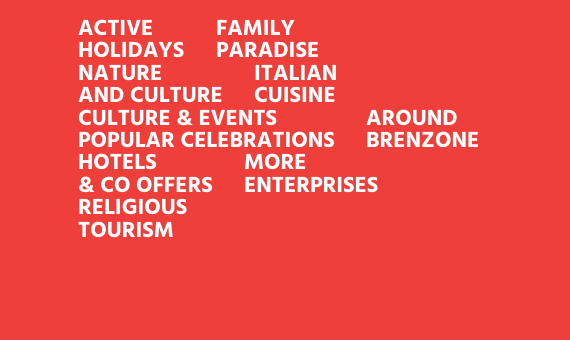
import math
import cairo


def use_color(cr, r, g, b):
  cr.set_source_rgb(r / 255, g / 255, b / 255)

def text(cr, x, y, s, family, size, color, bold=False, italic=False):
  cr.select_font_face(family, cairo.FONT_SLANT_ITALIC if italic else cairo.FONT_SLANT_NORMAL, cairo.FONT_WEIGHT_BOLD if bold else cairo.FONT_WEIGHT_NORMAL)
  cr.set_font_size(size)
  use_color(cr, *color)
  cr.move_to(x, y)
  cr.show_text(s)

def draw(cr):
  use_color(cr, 239, 63, 58)
  cr.paint()
  text(cr, 78, 35, "ACTIVE", "Hind", 22.4, (255, 255, 255), bold=True)
  text(cr, 78, 57, "HOLIDAYS", "Hind", 22.4, (255, 255, 255), bold=True)
  text(cr, 216, 35, "FAMILY", "Hind", 22.4, (255, 255, 255), bold=True)
  text(cr, 216, 57, "PARADISE", "Hind", 22.4, (255, 255, 255), bold=True)
  text(cr, 78, 80, "NATURE", "Hind", 22.4, (255, 255, 255), bold=True)
  text(cr, 78, 102, "AND CULTURE", "Hind", 22.4, (255, 255, 255), bold=True)
  text(cr, 254, 80, "ITALIAN", "Hind", 22.4, (255, 255, 255), bold=True)
  text(cr, 254, 102, "CUISINE", "Hind", 22.4, (255, 255, 255), bold=True)
  text(cr, 78, 125, "CULTURE & EVENTS", "Hind", 22.4, (255, 255, 255), bold=True)
  text(cr, 78, 147, "POPULAR CELEBRATIONS", "Hind", 22.4, (255, 255, 255), bold=True)
  text(cr, 366, 125, "AROUND", "Hind", 22.4, (255, 255, 255), bold=True)
  text(cr, 366, 147, "BRENZONE", "Hind", 22.4, (255, 255, 255), bold=True)
  text(cr, 78, 169, "HOTELS", "Hind", 22.4, (255, 255, 255), bold=True)
  text(cr, 78, 192, "& CO OFFERS", "Hind", 22.4, (255, 255, 255), bold=True)
  text(cr, 244, 169, "MORE", "Hind", 22.4, (255, 255, 255), bold=True)
  text(cr, 244, 192, "ENTERPRISES", "Hind", 22.4, (255, 255, 255), bold=True)
  text(cr, 78, 214, "RELIGIOUS", "Hind", 22.4, (255, 255, 255), bold=True)
  text(cr, 78, 237, "TOURISM", "Hind", 22.4, (255, 255, 255), bold=True)


surface = cairo.ImageSurface(cairo.FORMAT_RGB24, 570, 340)
cr = cairo.Context(surface)
options = cairo.FontOptions()
options.set_hint_metrics(cairo.HINT_METRICS_OFF)
options.set_hint_style(cairo.HINT_STYLE_NONE)
cr.set_font_options(options)
cr.set_miter_limit(4)
draw(cr)
surface.write_to_png("out.png")
